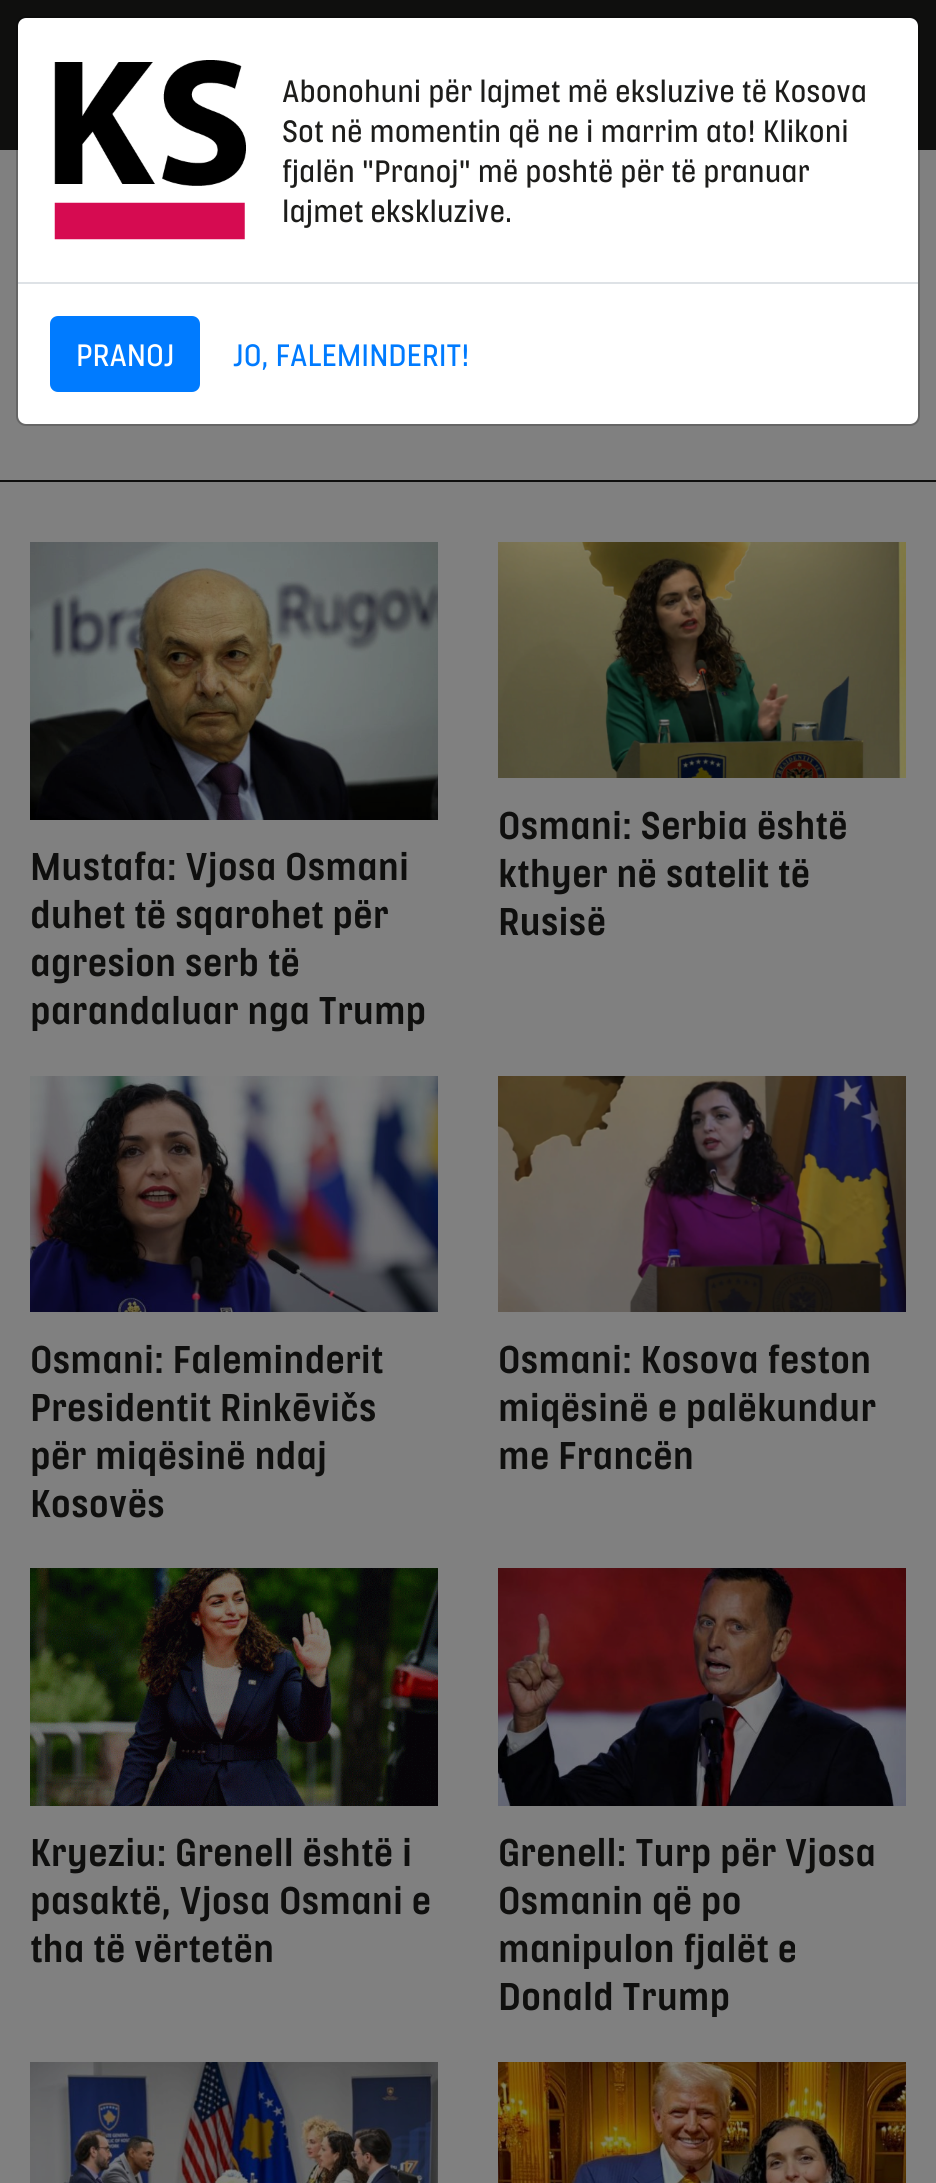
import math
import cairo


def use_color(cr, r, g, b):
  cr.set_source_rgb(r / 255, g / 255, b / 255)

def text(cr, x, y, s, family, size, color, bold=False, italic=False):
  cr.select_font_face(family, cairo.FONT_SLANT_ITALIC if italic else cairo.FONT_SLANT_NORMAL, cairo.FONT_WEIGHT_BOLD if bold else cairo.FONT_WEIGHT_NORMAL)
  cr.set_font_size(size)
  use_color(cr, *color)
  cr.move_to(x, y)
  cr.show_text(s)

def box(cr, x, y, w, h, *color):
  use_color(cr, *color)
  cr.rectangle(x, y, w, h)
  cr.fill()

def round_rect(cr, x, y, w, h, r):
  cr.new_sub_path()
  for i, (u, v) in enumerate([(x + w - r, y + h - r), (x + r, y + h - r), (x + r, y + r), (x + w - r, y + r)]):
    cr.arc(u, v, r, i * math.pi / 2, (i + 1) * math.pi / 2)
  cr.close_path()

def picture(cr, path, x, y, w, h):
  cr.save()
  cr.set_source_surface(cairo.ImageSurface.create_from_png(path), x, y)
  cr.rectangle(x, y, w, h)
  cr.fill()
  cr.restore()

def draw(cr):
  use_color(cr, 128, 128, 128)
  cr.paint()
  box(cr, 0, 0, 936, 150, 15, 15, 14)
  use_color(cr, 255, 255, 255)
  round_rect(cr, 18, 18, 900, 406, 8)
  cr.fill()
  round_rect(cr, 17, 17, 902, 408, 9)
  cr.set_source_rgba(0, 0, 0, 0.2)
  cr.stroke()
  picture(cr, "img_01.png", 54, 60, 192, 180)
  box(cr, 18, 282, 900, 2, 222, 226, 230)
  use_color(cr, 0, 123, 255)
  round_rect(cr, 51, 317, 148, 74, 7)
  cr.fill_preserve()
  cr.stroke()
  box(cr, 0, 480, 936, 2, 15, 15, 14)
  picture(cr, "img_02.png", 30, 542, 408, 278)
  picture(cr, "img_03.png", 498, 542, 408, 236)
  picture(cr, "img_04.png", 30, 1076, 408, 236)
  picture(cr, "img_05.png", 498, 1076, 408, 236)
  picture(cr, "img_06.png", 30, 1568, 408, 238)
  picture(cr, "img_07.png", 498, 1568, 408, 238)
  picture(cr, "img_08.png", 30, 2062, 408, 121)
  picture(cr, "img_09.png", 498, 2062, 408, 121)
  text(cr, 282, 102, "Abonohuni për lajmet më eksluzive të Kosova", "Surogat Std", 32, (29, 29, 27))
  text(cr, 282, 142, "Sot në momentin që ne i marrim ato! Klikoni", "Surogat Std", 32, (29, 29, 27))
  text(cr, 282, 182, "fjalën \"Pranoj\" më poshtë për të pranuar", "Surogat Std", 32, (29, 29, 27))
  text(cr, 282, 222, "lajmet ekskluzive.", "Surogat Std", 32, (29, 29, 27))
  text(cr, 76, 366, "PRANOJ", "Surogat Std", 32, (255, 255, 255))
  text(cr, 233, 366, "JO, FALEMINDERIT!", "Surogat Std", 32, (0, 123, 255))
  text(cr, 30, 880, "Mustafa: Vjosa Osmani", "Surogat Std Medium", 40, (15, 15, 14))
  text(cr, 30, 928, "duhet të sqarohet për", "Surogat Std Medium", 40, (15, 15, 14))
  text(cr, 30, 976, "agresion serb të", "Surogat Std Medium", 40, (15, 15, 14))
  text(cr, 30, 1024, "parandaluar nga Trump", "Surogat Std Medium", 40, (15, 15, 14))
  text(cr, 498, 839, "Osmani: Serbia është", "Surogat Std Medium", 40, (15, 15, 14))
  text(cr, 498, 887, "kthyer në satelit të", "Surogat Std Medium", 40, (15, 15, 14))
  text(cr, 498, 935, "Rusisë", "Surogat Std Medium", 40, (15, 15, 14))
  text(cr, 30, 1373, "Osmani: Faleminderit", "Surogat Std Medium", 40, (15, 15, 14))
  text(cr, 30, 1421, "Presidentit Rinkēvičs", "Surogat Std Medium", 40, (15, 15, 14))
  text(cr, 30, 1469, "për miqësinë ndaj", "Surogat Std Medium", 40, (15, 15, 14))
  text(cr, 30, 1517, "Kosovës", "Surogat Std Medium", 40, (15, 15, 14))
  text(cr, 498, 1373, "Osmani: Kosova feston", "Surogat Std Medium", 40, (15, 15, 14))
  text(cr, 498, 1421, "miqësinë e palëkundur", "Surogat Std Medium", 40, (15, 15, 14))
  text(cr, 498, 1469, "me Francën", "Surogat Std Medium", 40, (15, 15, 14))
  text(cr, 30, 1866, "Kryeziu: Grenell është i", "Surogat Std Medium", 40, (15, 15, 14))
  text(cr, 30, 1914, "pasaktë, Vjosa Osmani e", "Surogat Std Medium", 40, (15, 15, 14))
  text(cr, 30, 1962, "tha të vërtetën", "Surogat Std Medium", 40, (15, 15, 14))
  text(cr, 498, 1866, "Grenell: Turp për Vjosa", "Surogat Std Medium", 40, (15, 15, 14))
  text(cr, 498, 1914, "Osmanin që po", "Surogat Std Medium", 40, (15, 15, 14))
  text(cr, 498, 1962, "manipulon fjalët e", "Surogat Std Medium", 40, (15, 15, 14))
  text(cr, 498, 2010, "Donald Trump", "Surogat Std Medium", 40, (15, 15, 14))


surface = cairo.ImageSurface(cairo.FORMAT_RGB24, 936, 2183)
cr = cairo.Context(surface)
options = cairo.FontOptions()
options.set_hint_metrics(cairo.HINT_METRICS_OFF)
options.set_hint_style(cairo.HINT_STYLE_NONE)
cr.set_font_options(options)
cr.set_miter_limit(4)
draw(cr)
surface.write_to_png("out.png")
